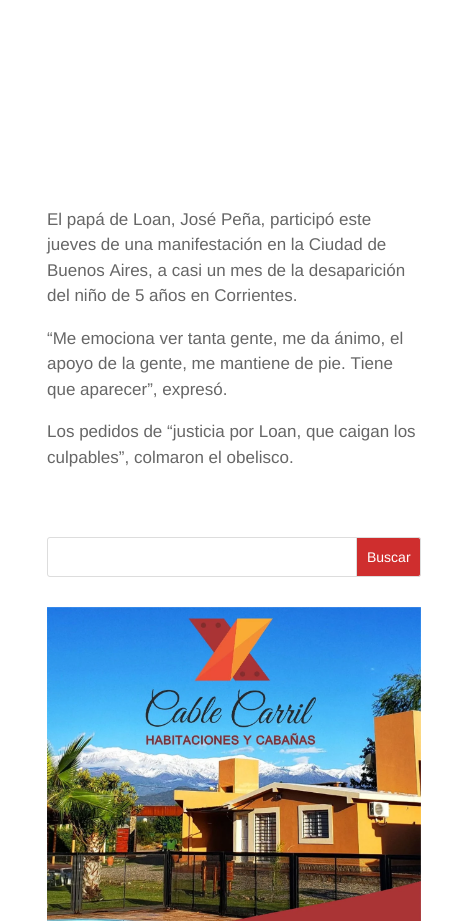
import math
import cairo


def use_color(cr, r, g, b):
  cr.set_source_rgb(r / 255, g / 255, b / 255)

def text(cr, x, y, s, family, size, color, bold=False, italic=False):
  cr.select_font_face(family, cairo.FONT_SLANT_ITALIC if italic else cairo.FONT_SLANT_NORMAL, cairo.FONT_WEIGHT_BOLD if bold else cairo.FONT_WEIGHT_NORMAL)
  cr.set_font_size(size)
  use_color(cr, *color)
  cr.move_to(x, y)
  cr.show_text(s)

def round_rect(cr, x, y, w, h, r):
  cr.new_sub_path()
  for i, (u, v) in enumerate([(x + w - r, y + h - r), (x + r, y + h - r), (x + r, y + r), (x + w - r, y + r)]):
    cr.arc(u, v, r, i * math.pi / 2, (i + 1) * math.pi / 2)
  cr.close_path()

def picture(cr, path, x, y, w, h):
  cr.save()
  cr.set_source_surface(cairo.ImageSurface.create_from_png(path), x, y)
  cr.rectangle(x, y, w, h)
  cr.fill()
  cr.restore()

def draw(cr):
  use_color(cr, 255, 255, 255)
  cr.paint()
  round_rect(cr, 47.5, 537.5, 373, 39, 2.5)
  use_color(cr, 221, 221, 221)
  cr.set_line_width(1)
  cr.stroke()
  use_color(cr, 207, 46, 46)
  cr.new_path()
  cr.move_to(356.5, 537.5)
  cr.line_to(418, 537.5)
  cr.curve_to(419.5, 537.5, 420.5, 538.5, 420.5, 540)
  cr.line_to(420.5, 574)
  cr.curve_to(420.5, 575.5, 419.5, 576.5, 418, 576.5)
  cr.line_to(356.5, 576.5)
  cr.close_path()
  cr.fill_preserve()
  use_color(cr, 221, 221, 221)
  cr.stroke()
  picture(cr, "img_01.png", 47, 607, 374, 314)
  text(cr, 47, 225, "El papá de Loan, José Peña, participó este", "Liberation Sans", 17, (102, 102, 102))
  text(cr, 47, 250, "jueves de una manifestación en la Ciudad de", "Liberation Sans", 17, (102, 102, 102))
  text(cr, 47, 276, "Buenos Aires, a casi un mes de la desaparición", "Liberation Sans", 17, (102, 102, 102))
  text(cr, 47, 301, "del niño de 5 años en Corrientes.", "Liberation Sans", 17, (102, 102, 102))
  text(cr, 47, 344, "“Me emociona ver tanta gente, me da ánimo, el", "Liberation Sans", 17, (102, 102, 102))
  text(cr, 47, 369, "apoyo de la gente, me mantiene de pie. Tiene", "Liberation Sans", 17, (102, 102, 102))
  text(cr, 47, 395, "que aparecer”, expresó.", "Liberation Sans", 17, (102, 102, 102))
  text(cr, 47, 437, "Los pedidos de “justicia por Loan, que caigan los", "Liberation Sans", 17, (102, 102, 102))
  text(cr, 47, 463, "culpables”, colmaron el obelisco.", "Liberation Sans", 17, (102, 102, 102))
  text(cr, 367, 562, "Buscar", "Liberation Sans", 14, (255, 255, 255))


surface = cairo.ImageSurface(cairo.FORMAT_RGB24, 468, 921)
cr = cairo.Context(surface)
options = cairo.FontOptions()
options.set_hint_metrics(cairo.HINT_METRICS_OFF)
options.set_hint_style(cairo.HINT_STYLE_NONE)
cr.set_font_options(options)
cr.set_miter_limit(4)
draw(cr)
surface.write_to_png("out.png")
